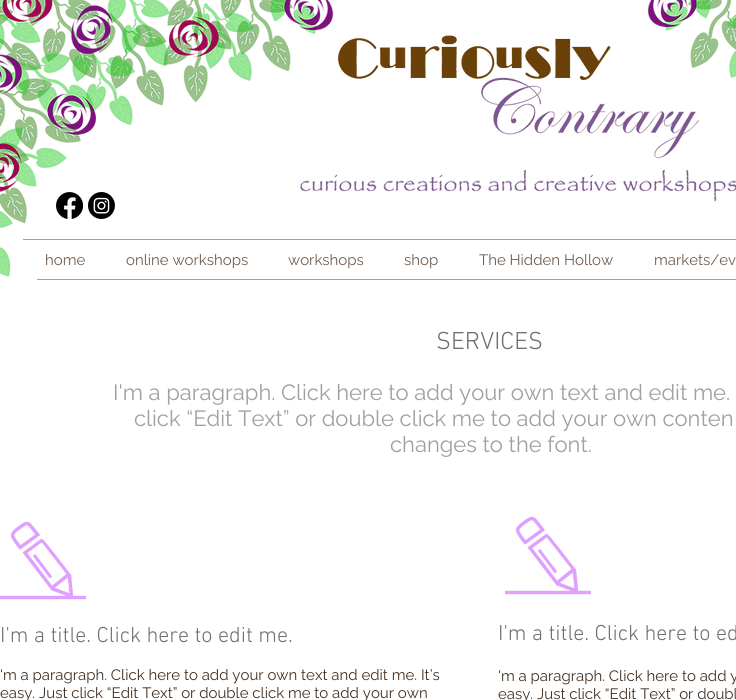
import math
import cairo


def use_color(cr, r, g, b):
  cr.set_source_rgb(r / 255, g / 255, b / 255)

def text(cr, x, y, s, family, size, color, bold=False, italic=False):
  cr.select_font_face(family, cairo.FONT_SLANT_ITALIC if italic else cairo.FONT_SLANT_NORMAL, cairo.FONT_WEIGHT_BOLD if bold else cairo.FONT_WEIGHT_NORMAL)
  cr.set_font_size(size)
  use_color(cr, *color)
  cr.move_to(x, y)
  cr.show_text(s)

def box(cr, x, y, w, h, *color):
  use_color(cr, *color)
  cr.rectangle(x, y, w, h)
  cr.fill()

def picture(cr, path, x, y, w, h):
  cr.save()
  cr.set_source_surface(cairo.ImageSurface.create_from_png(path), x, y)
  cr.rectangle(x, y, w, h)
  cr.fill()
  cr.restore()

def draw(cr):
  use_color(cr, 255, 255, 255)
  cr.paint()
  picture(cr, "img_01.png", 0, 0, 334, 277)
  picture(cr, "img_03.png", 337, 35, 363, 124)
  picture(cr, "img_02.png", 647, 0, 89, 78)
  picture(cr, "img_04.png", 300, 169, 436, 33)
  picture(cr, "img_05.png", 56, 192, 27, 27)
  picture(cr, "img_06.png", 88, 192, 27, 27)
  box(cr, 23, 239, 713, 1, 160, 160, 159)
  box(cr, 37, 279, 699, 1, 160, 160, 159)
  picture(cr, "img_07.png", 0, 521, 86, 79)
  picture(cr, "img_07.png", 505, 516, 86, 79)
  text(cr, 45, 265, "home", "Raleway", 15, (114, 93, 78))
  text(cr, 126, 265, "online workshops", "Raleway", 15, (114, 93, 78))
  text(cr, 288, 265, "workshops", "Raleway", 15, (114, 93, 78))
  text(cr, 404, 265, "shop", "Raleway", 15, (114, 93, 78))
  text(cr, 479, 265, "The Hidden Hollow", "Raleway", 15, (114, 93, 78))
  text(cr, 654, 265, "markets/ev", "Raleway", 15, (114, 93, 78))
  text(cr, 436, 349, "SERVICES", "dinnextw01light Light", 25, (112, 112, 112))
  text(cr, 113, 400, "I'm a paragraph. Click here to add your own text and edit me.", "Raleway", 22, (160, 160, 159))
  text(cr, 134, 426, "click “Edit Text” or double click me to add your own conten", "Raleway", 22, (160, 160, 159))
  text(cr, 390, 452, "changes to the font.", "Raleway", 22, (160, 160, 159))
  text(cr, 0, 642, "I'm a title. Click here to edit me.", "dinnextw01light Light", 22, (112, 112, 112))
  text(cr, 498, 640, "I'm a title. Click here to ed", "dinnextw01light Light", 22, (112, 112, 112))
  text(cr, 0, 680, "'m a paragraph. Click here to add your own text and edit me. It’s", "Raleway", 15, (67, 49, 35))
  text(cr, 0, 698, "easy. Just click “Edit Text” or double click me to add your own", "Raleway", 15, (67, 49, 35))
  text(cr, 498, 681, "'m a paragraph. Click here to add y", "Raleway", 15, (67, 49, 35))
  text(cr, 498, 699, "easy. Just click “Edit Text” or doubl", "Raleway", 15, (67, 49, 35))


surface = cairo.ImageSurface(cairo.FORMAT_RGB24, 736, 700)
cr = cairo.Context(surface)
options = cairo.FontOptions()
options.set_hint_metrics(cairo.HINT_METRICS_OFF)
options.set_hint_style(cairo.HINT_STYLE_NONE)
cr.set_font_options(options)
cr.set_miter_limit(4)
draw(cr)
surface.write_to_png("out.png")
